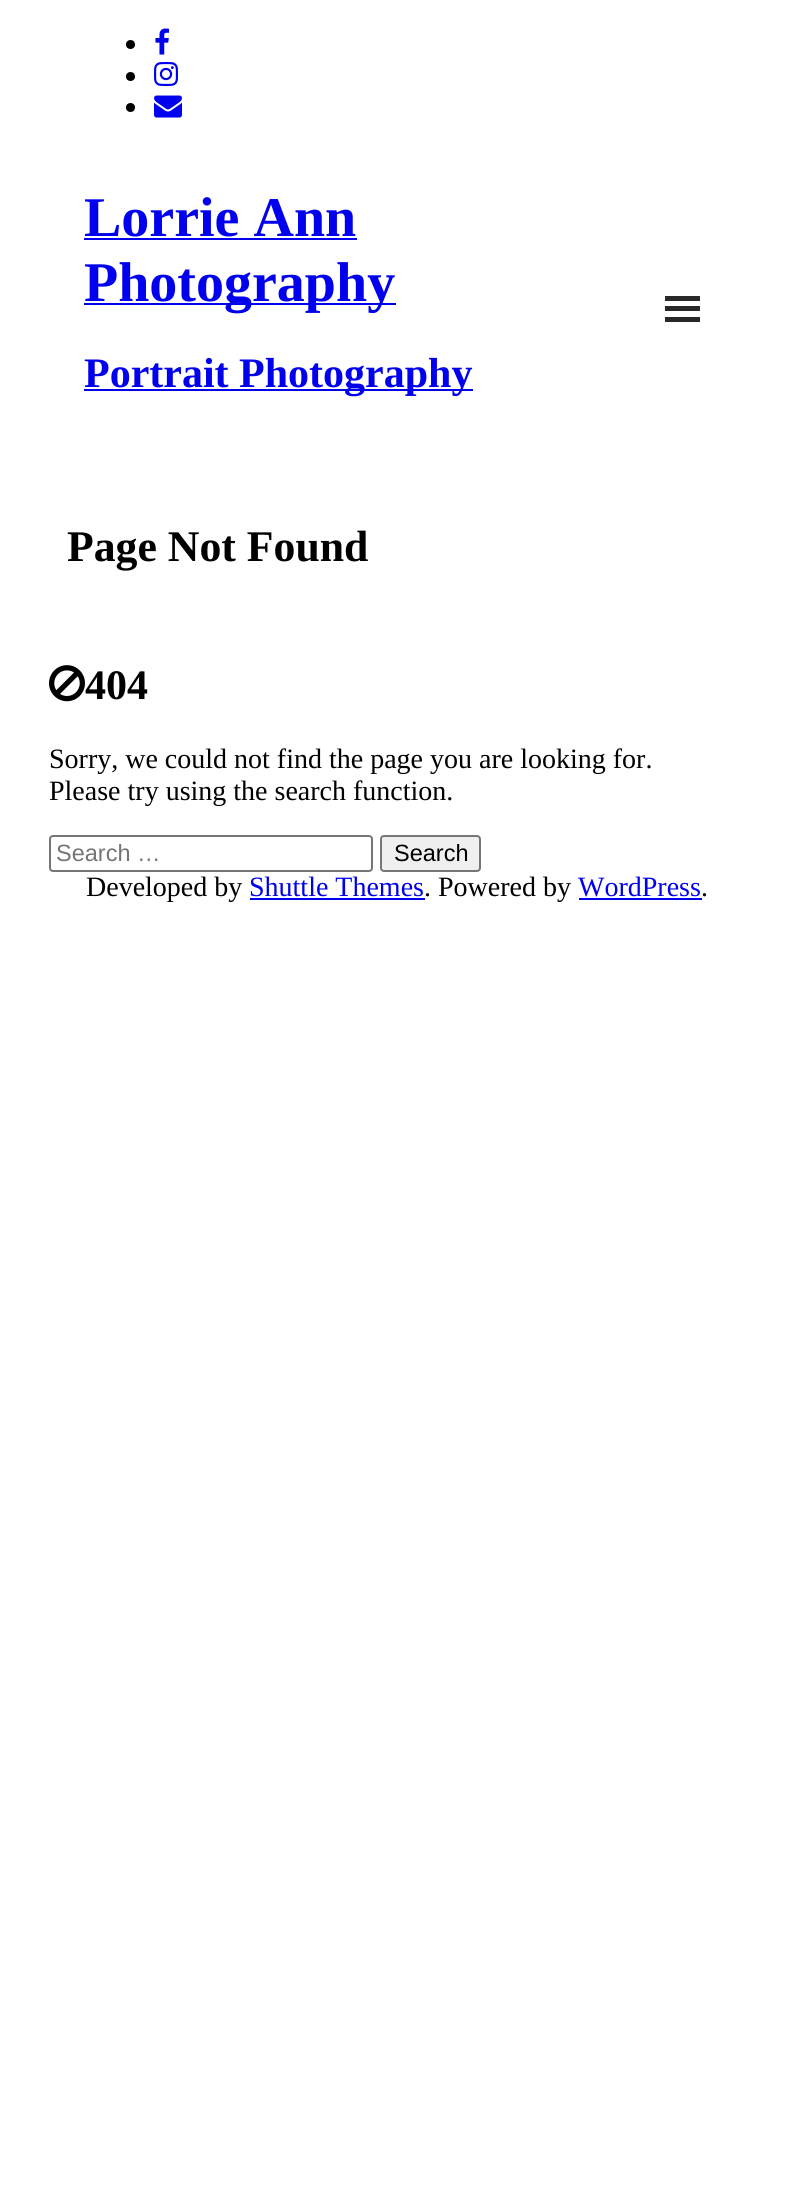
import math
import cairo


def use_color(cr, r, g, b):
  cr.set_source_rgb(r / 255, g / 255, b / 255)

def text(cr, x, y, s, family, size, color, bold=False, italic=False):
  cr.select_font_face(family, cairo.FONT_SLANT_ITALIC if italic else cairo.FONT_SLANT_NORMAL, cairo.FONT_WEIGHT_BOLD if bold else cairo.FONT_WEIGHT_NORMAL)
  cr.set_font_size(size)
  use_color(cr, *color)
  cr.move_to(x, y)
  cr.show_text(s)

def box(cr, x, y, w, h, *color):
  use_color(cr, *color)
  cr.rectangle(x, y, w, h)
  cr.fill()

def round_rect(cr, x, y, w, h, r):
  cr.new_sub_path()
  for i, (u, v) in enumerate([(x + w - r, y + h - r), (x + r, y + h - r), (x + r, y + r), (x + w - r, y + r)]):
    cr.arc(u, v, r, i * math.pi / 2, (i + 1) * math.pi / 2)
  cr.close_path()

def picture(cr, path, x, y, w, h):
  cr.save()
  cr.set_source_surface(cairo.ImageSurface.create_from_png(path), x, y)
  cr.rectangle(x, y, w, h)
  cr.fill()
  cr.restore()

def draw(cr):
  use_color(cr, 255, 255, 255)
  cr.paint()
  use_color(cr, 0, 0, 0)
  cr.arc(130.5, 44.5, 4.5, 0, 2 * math.pi)
  cr.fill()
  picture(cr, "img_01.png", 155, 28, 14, 27)
  cr.arc(130.5, 76.5, 4.5, 0, 2 * math.pi)
  cr.fill()
  picture(cr, "img_02.png", 154, 62, 24, 24)
  cr.arc(130.5, 107.5, 4.5, 0, 2 * math.pi)
  cr.fill()
  picture(cr, "img_03.png", 154, 95, 28, 23)
  box(cr, 84, 238, 273, 2, 0, 0, 238)
  box(cr, 84, 303, 312, 2, 0, 0, 238)
  box(cr, 84, 389, 389, 2, 0, 0, 238)
  box(cr, 665, 296, 35, 5, 41, 41, 41)
  box(cr, 665, 306, 35, 5, 41, 41, 41)
  box(cr, 665, 317, 35, 5, 41, 41, 41)
  picture(cr, "img_04.png", 49, 665, 36, 37)
  round_rect(cr, 50, 836, 322, 35, 3)
  use_color(cr, 118, 118, 118)
  cr.stroke()
  use_color(cr, 239, 239, 239)
  round_rect(cr, 381, 836, 99, 35, 3)
  cr.fill_preserve()
  use_color(cr, 118, 118, 118)
  cr.stroke()
  box(cr, 250, 898, 175, 2, 0, 0, 238)
  box(cr, 579, 898, 123, 2, 0, 0, 238)
  text(cr, 84, 236, "Lorrie Ann", "Liberation Serif", 56, (0, 0, 238), bold=True)
  text(cr, 84, 301, "Photography", "Liberation Serif", 56, (0, 0, 238), bold=True)
  text(cr, 84, 387, "Portrait Photography", "Liberation Serif", 42, (0, 0, 238), bold=True)
  text(cr, 67, 561, "Page Not Found", "Liberation Serif", 43.75, (0, 0, 0), bold=True)
  text(cr, 85, 699, "404", "Liberation Serif", 42, (0, 0, 0), bold=True)
  text(cr, 49, 768, "Sorry, we could not find the page you are looking for.", "Liberation Serif", 28, (0, 0, 0))
  text(cr, 49, 800, "Please try using the search function.", "Liberation Serif", 28, (0, 0, 0))
  text(cr, 56, 861, "Search …", "Liberation Sans", 23.5, (117, 117, 117))
  text(cr, 394, 861, "Search", "Liberation Sans", 23.5, (0, 0, 0))
  text(cr, 86, 896, "Developed by", "Liberation Serif", 28, (0, 0, 0))
  text(cr, 249, 896, "Shuttle Themes", "Liberation Serif", 28, (0, 0, 238))
  text(cr, 424, 896, ". Powered by", "Liberation Serif", 28, (0, 0, 0))
  text(cr, 578, 896, "WordPress", "Liberation Serif", 28, (0, 0, 238))
  text(cr, 701, 896, ".", "Liberation Serif", 28, (0, 0, 0))


surface = cairo.ImageSurface(cairo.FORMAT_RGB24, 794, 2212)
cr = cairo.Context(surface)
options = cairo.FontOptions()
options.set_hint_metrics(cairo.HINT_METRICS_OFF)
options.set_hint_style(cairo.HINT_STYLE_NONE)
cr.set_font_options(options)
cr.set_miter_limit(4)
draw(cr)
surface.write_to_png("out.png")
